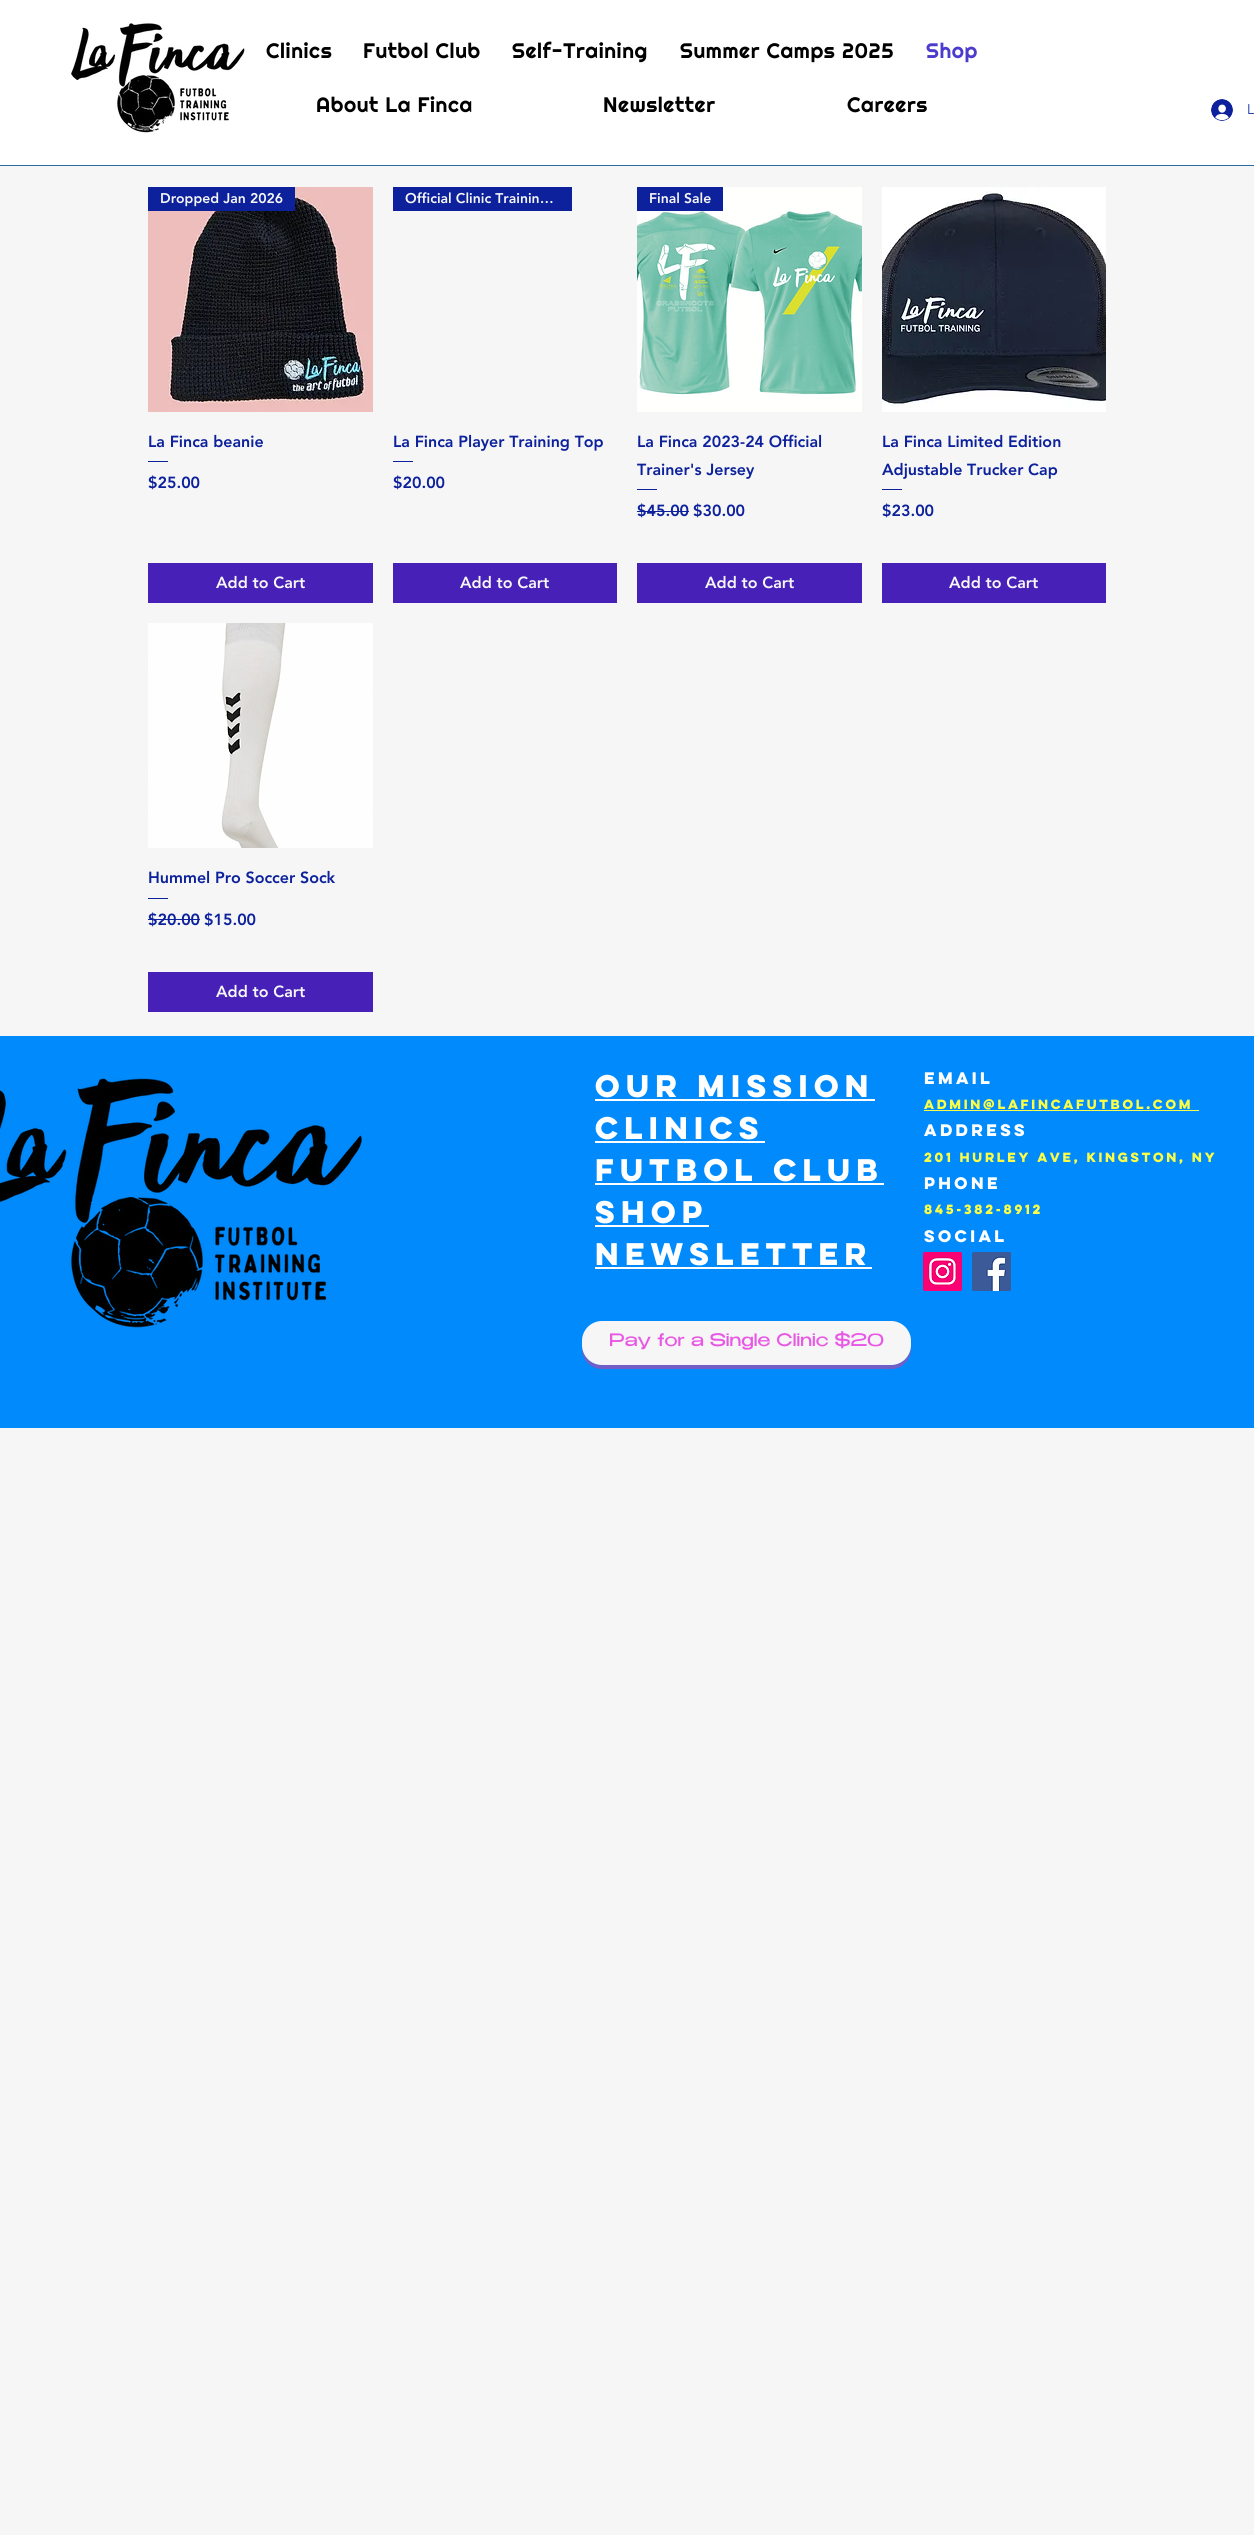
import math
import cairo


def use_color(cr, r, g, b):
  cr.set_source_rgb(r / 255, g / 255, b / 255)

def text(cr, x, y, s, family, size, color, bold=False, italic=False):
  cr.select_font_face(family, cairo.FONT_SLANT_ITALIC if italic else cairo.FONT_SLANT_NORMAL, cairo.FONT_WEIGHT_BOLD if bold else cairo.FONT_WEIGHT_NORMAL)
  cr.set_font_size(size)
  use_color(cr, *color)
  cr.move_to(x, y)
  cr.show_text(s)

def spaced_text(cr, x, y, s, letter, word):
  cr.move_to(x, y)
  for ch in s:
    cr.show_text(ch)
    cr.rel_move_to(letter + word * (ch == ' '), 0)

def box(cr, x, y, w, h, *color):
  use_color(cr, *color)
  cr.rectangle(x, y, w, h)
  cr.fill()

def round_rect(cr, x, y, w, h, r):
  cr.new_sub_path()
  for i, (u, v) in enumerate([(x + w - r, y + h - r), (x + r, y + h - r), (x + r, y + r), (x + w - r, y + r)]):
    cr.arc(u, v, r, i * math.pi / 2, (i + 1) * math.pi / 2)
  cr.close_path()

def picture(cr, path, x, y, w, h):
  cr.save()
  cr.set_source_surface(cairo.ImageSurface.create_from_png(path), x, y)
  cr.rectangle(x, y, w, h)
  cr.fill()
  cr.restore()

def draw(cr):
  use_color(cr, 246, 246, 246)
  cr.paint()
  box(cr, 0, 0, 1254, 165, 255, 255, 255)
  picture(cr, "img_01.png", 71, 23, 174, 110)
  picture(cr, "img_02.png", 1211, 99, 22, 22)
  box(cr, 0, 165, 1254, 1, 43, 108, 163)
  picture(cr, "img_03.png", 148, 187, 225, 225)
  box(cr, 148, 187, 147, 24, 12, 33, 155)
  box(cr, 148, 461, 20, 1, 12, 33, 155)
  box(cr, 148, 563, 225, 40, 71, 32, 183)
  box(cr, 393, 187, 179, 24, 12, 33, 155)
  box(cr, 393, 461, 20, 1, 12, 33, 155)
  box(cr, 393, 563, 224, 40, 71, 32, 183)
  picture(cr, "img_04.png", 637, 187, 225, 225)
  box(cr, 637, 187, 86, 24, 12, 33, 155)
  box(cr, 637, 489, 20, 1, 12, 33, 155)
  box(cr, 637, 511, 52, 1, 12, 33, 155)
  box(cr, 637, 563, 225, 40, 71, 32, 183)
  picture(cr, "img_05.png", 882, 187, 224, 225)
  box(cr, 882, 489, 20, 1, 12, 33, 155)
  box(cr, 882, 563, 224, 40, 71, 32, 183)
  picture(cr, "img_06.png", 148, 623, 225, 225)
  box(cr, 148, 898, 20, 1, 12, 33, 155)
  box(cr, 148, 919, 52, 1, 12, 33, 155)
  box(cr, 148, 972, 225, 40, 71, 32, 183)
  box(cr, 0, 1036, 1254, 392, 0, 138, 252)
  picture(cr, "img_07.png", 0, 1078, 362, 250)
  box(cr, 595, 1099, 280, 2, 255, 255, 255)
  box(cr, 595, 1141, 170, 2, 255, 255, 255)
  box(cr, 595, 1183, 289, 2, 255, 255, 255)
  box(cr, 595, 1225, 114, 2, 255, 255, 255)
  box(cr, 595, 1267, 277, 2, 255, 255, 255)
  box(cr, 924, 1110, 275, 1, 251, 255, 70)
  picture(cr, "img_08.png", 923, 1252, 39, 39)
  picture(cr, "img_09.png", 972, 1252, 39, 39)
  use_color(cr, 114, 94, 199)
  cr.new_path()
  cr.move_to(582, 1345)
  cr.line_to(582, 1349)
  cr.curve_to(582, 1360, 591, 1369, 602, 1369)
  cr.line_to(891, 1369)
  cr.curve_to(902, 1369, 911, 1360, 911, 1349)
  cr.line_to(911, 1345)
  cr.curve_to(911, 1356, 902, 1365, 891, 1365)
  cr.line_to(602, 1365)
  cr.curve_to(591, 1365, 582, 1356, 582, 1345)
  cr.close_path()
  cr.fill()
  use_color(cr, 246, 246, 246)
  round_rect(cr, 582, 1321, 329, 44, 20)
  cr.fill()
  cr.select_font_face("Righteous")
  cr.set_font_size(21)
  use_color(cr, 0, 0, 0)
  spaced_text(cr, 266, 58, "Clinics", 0.6, 0)
  spaced_text(cr, 363, 58, "Futbol Club", 0.6, 0)
  spaced_text(cr, 512, 58, "Self-Training", 0.6, 0)
  spaced_text(cr, 680, 58, "Summer Camps 2025", 0.6, 0)
  use_color(cr, 75, 60, 205)
  spaced_text(cr, 926, 58, "Shop", 0.6, 0)
  use_color(cr, 0, 0, 0)
  spaced_text(cr, 316, 112, "About La Finca", 0.6, 0)
  spaced_text(cr, 603, 112, "Newsletter", 0.6, 0)
  spaced_text(cr, 847, 112, "Careers", 0.6, 0)
  text(cr, 1247, 114, "L", "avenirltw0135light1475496 Light", 14, (12, 33, 155))
  text(cr, 160, 203, "Dropped Jan 2026", "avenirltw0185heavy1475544 Black", 14, (246, 246, 246))
  text(cr, 148, 447, "La Finca beanie", "avenirltw0185heavy1475544 Black", 16, (12, 33, 155))
  text(cr, 148, 488, "$25.00", "avenirltw0185heavy1475544 Black", 16, (12, 33, 155))
  text(cr, 216, 588, "Add to Cart", "avenirltw0185heavy1475544 Black", 16, (246, 246, 246))
  text(cr, 405, 203, "Official Clinic Trainin…", "avenirltw0185heavy1475544 Black", 14, (246, 246, 246))
  text(cr, 393, 447, "La Finca Player Training Top", "avenirltw0185heavy1475544 Black", 16, (12, 33, 155))
  text(cr, 393, 488, "$20.00", "avenirltw0185heavy1475544 Black", 16, (12, 33, 155))
  text(cr, 460, 588, "Add to Cart", "avenirltw0185heavy1475544 Black", 16, (246, 246, 246))
  text(cr, 649, 203, "Final Sale", "avenirltw0185heavy1475544 Black", 14, (246, 246, 246))
  text(cr, 637, 447, "La Finca 2023-24 Official", "avenirltw0185heavy1475544 Black", 16, (12, 33, 155))
  text(cr, 637, 475, "Trainer's Jersey", "avenirltw0185heavy1475544 Black", 16, (12, 33, 155))
  text(cr, 637, 516, "$45.00", "avenirltw0185heavy1475544 Black", 16, (12, 33, 155))
  text(cr, 693, 516, "$30.00", "avenirltw0185heavy1475544 Black", 16, (12, 33, 155))
  text(cr, 705, 588, "Add to Cart", "avenirltw0185heavy1475544 Black", 16, (246, 246, 246))
  text(cr, 882, 447, "La Finca Limited Edition", "avenirltw0185heavy1475544 Black", 16, (12, 33, 155))
  text(cr, 882, 475, "Adjustable Trucker Cap", "avenirltw0185heavy1475544 Black", 16, (12, 33, 155))
  text(cr, 882, 516, "$23.00", "avenirltw0185heavy1475544 Black", 16, (12, 33, 155))
  text(cr, 949, 588, "Add to Cart", "avenirltw0185heavy1475544 Black", 16, (246, 246, 246))
  text(cr, 148, 883, "Hummel Pro Soccer Sock", "avenirltw0185heavy1475544 Black", 16, (12, 33, 155))
  text(cr, 148, 925, "$20.00", "avenirltw0185heavy1475544 Black", 16, (12, 33, 155))
  text(cr, 204, 925, "$15.00", "avenirltw0185heavy1475544 Black", 16, (12, 33, 155))
  text(cr, 216, 997, "Add to Cart", "avenirltw0185heavy1475544 Black", 16, (246, 246, 246))
  text(cr, 595, 1097, "our mission", "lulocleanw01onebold", 28, (255, 255, 255), bold=True)
  text(cr, 595, 1139, "clinics", "lulocleanw01onebold", 28, (255, 255, 255), bold=True)
  text(cr, 595, 1181, "FUTBOL CLUB", "lulocleanw01onebold", 28, (255, 255, 255), bold=True)
  text(cr, 595, 1223, "SHOP", "lulocleanw01onebold", 28, (255, 255, 255), bold=True)
  text(cr, 595, 1265, "NEWSLETTER", "lulocleanw01onebold", 28, (255, 255, 255), bold=True)
  text(cr, 924, 1084, "EMAIL", "lulocleanw01onebold", 15, (255, 255, 255), bold=True)
  text(cr, 924, 1109, "admin@lafincafutbol.com", "lulocleanw01onebold", 12, (251, 255, 70), bold=True)
  text(cr, 924, 1136, "ADDRESS", "lulocleanw01onebold", 15, (255, 255, 255), bold=True)
  text(cr, 924, 1162, "201 Hurley Ave, KINGSTON, NY", "lulocleanw01onebold", 12, (251, 255, 70), bold=True)
  text(cr, 924, 1189, "PHONE", "lulocleanw01onebold", 15, (255, 255, 255), bold=True)
  text(cr, 924, 1214, "845-382-8912", "lulocleanw01onebold", 12, (251, 255, 70), bold=True)
  text(cr, 924, 1242, "SOCIAL", "lulocleanw01onebold", 15, (255, 255, 255), bold=True)
  text(cr, 609, 1346, "Pay for a Single Clinic $20", "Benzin", 17, (233, 88, 229))


surface = cairo.ImageSurface(cairo.FORMAT_RGB24, 1254, 2535)
cr = cairo.Context(surface)
options = cairo.FontOptions()
options.set_hint_metrics(cairo.HINT_METRICS_OFF)
options.set_hint_style(cairo.HINT_STYLE_NONE)
cr.set_font_options(options)
cr.set_miter_limit(4)
draw(cr)
surface.write_to_png("out.png")
